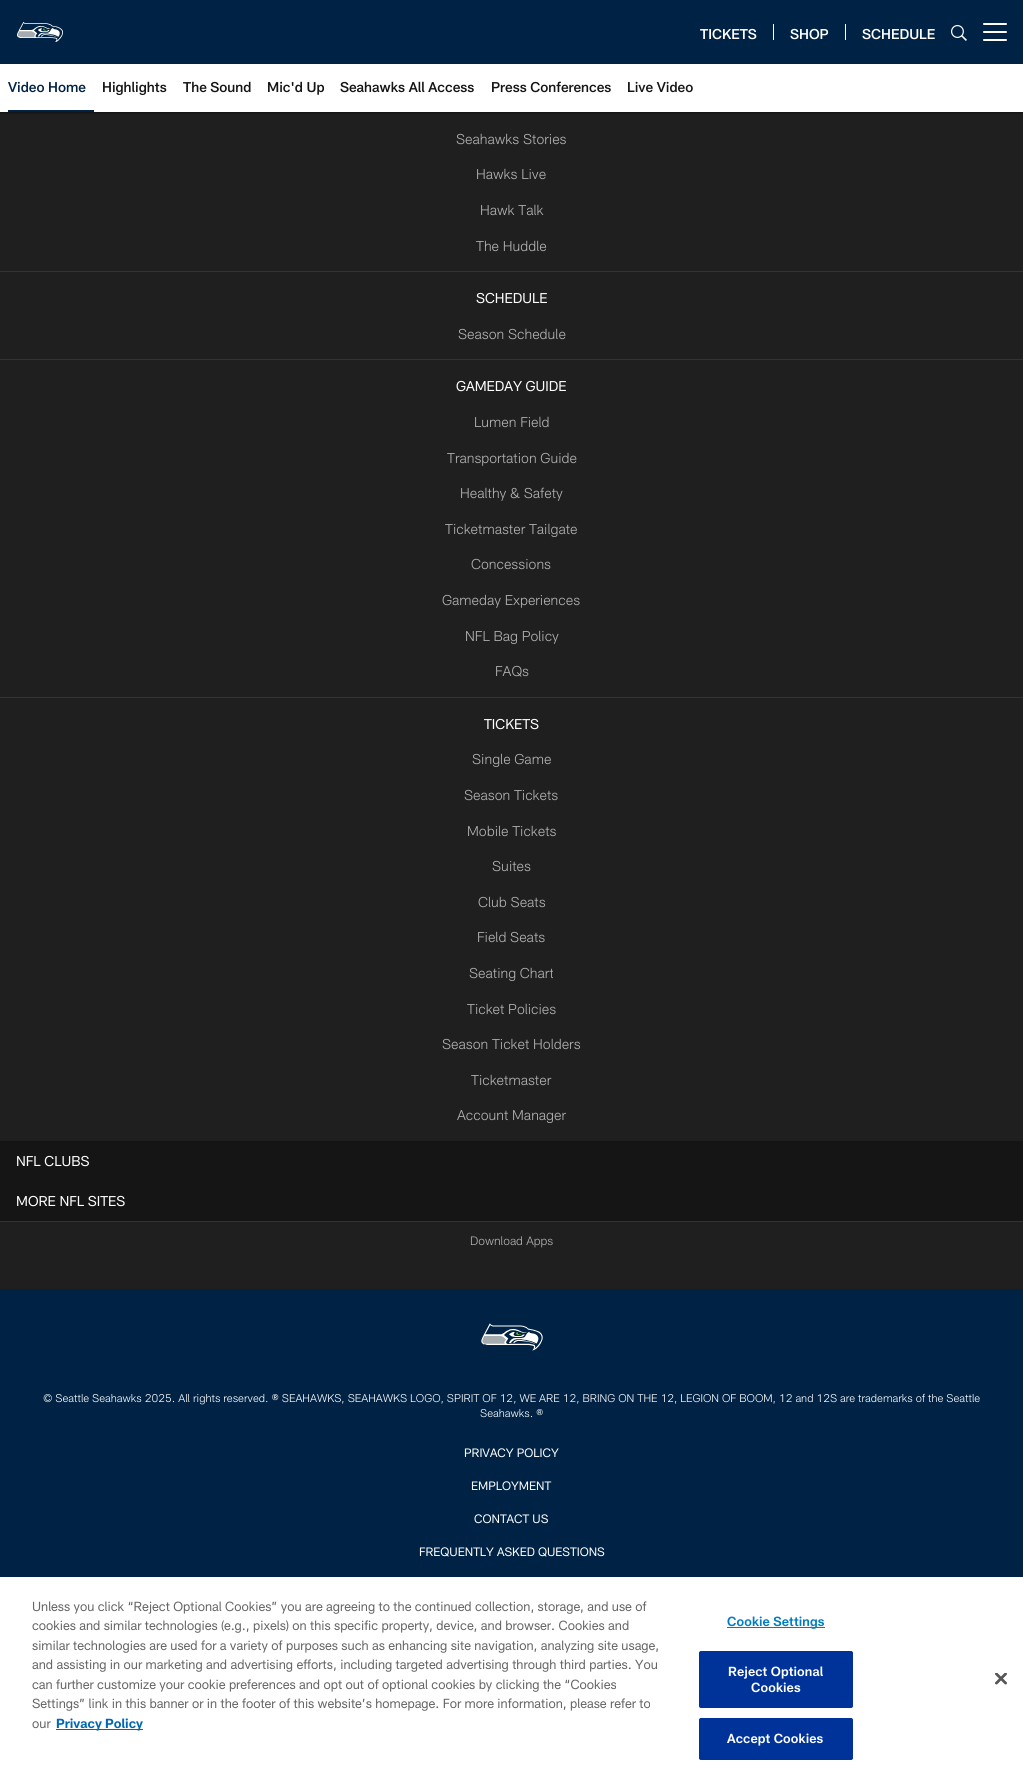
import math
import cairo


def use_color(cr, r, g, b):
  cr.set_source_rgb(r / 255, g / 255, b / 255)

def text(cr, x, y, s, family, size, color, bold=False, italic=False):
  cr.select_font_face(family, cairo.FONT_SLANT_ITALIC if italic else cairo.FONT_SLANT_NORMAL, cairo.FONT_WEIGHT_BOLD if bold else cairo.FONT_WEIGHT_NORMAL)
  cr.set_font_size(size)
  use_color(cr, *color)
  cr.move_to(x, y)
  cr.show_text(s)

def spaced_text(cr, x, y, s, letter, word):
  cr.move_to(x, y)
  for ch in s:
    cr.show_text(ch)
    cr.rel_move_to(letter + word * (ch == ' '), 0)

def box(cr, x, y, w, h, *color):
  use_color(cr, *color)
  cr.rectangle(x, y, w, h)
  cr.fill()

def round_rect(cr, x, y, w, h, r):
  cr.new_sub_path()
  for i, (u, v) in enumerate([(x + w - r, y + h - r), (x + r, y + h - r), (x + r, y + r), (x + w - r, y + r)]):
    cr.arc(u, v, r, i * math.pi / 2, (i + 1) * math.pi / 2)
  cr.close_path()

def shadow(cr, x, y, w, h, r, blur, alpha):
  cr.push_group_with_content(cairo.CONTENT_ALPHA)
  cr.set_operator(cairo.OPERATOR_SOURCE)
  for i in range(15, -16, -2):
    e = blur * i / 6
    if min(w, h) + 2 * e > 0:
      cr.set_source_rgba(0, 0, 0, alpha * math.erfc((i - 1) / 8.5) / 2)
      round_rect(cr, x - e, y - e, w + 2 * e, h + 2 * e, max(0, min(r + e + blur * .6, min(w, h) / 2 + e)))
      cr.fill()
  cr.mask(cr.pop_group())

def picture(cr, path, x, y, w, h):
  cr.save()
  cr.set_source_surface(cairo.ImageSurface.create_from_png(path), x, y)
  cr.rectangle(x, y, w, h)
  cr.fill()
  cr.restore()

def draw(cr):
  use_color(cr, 31, 31, 31)
  cr.paint()
  box(cr, 0, 0, 1023, 64, 0, 34, 68)
  picture(cr, "img_01.png", 17, 21, 46, 21)
  box(cr, 773, 24, 1, 16, 255, 255, 255)
  box(cr, 845, 24, 1, 16, 255, 255, 255)
  picture(cr, "img_02.png", 951, 25, 16, 16)
  round_rect(cr, 983, 31, 24, 2, 1)
  cr.fill()
  round_rect(cr, 983, 23, 24, 2, 1)
  cr.fill()
  round_rect(cr, 983, 39, 24, 2, 1)
  cr.fill()
  use_color(cr, 0, 0, 0)
  shadow(cr, 0, 65, 1023, 48, 0, 1, 0.47)
  box(cr, 0, 64, 1023, 48, 255, 255, 255)
  box(cr, 8, 110, 86, 2, 0, 34, 68)
  box(cr, 0, 271, 1023, 1, 51, 51, 51)
  box(cr, 0, 359, 1023, 1, 51, 51, 51)
  box(cr, 0, 697, 1023, 1, 51, 51, 51)
  box(cr, 0, 1141, 1023, 80, 21, 21, 21)
  box(cr, 0, 1221, 1023, 1, 51, 51, 51)
  box(cr, 0, 1289, 1023, 288, 0, 34, 68)
  picture(cr, "img_03.png", 481, 1323, 62, 28)
  box(cr, 0, 1577, 1023, 203, 255, 255, 255)
  box(cr, 56, 1729, 87, 1, 0, 103, 177)
  box(cr, 727, 1627, 98, 1, 0, 125, 195)
  use_color(cr, 0, 51, 153)
  round_rect(cr, 699.5, 1651.5, 153, 56, 1.5)
  cr.fill_preserve()
  cr.set_line_width(1)
  cr.stroke()
  round_rect(cr, 699.5, 1718.5, 153, 41, 1.5)
  cr.fill_preserve()
  cr.stroke()
  picture(cr, "img_04.png", 995, 1673, 12, 12)
  text(cr, 700, 39, "TICKETS", "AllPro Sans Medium", 14, (255, 255, 255))
  text(cr, 790, 39, "SHOP", "AllPro Sans Medium", 14, (255, 255, 255))
  text(cr, 862, 39, "SCHEDULE", "AllPro Sans Medium", 14, (255, 255, 255))
  text(cr, 8, 92, "Video Home", "AllPro Sans Medium", 14, (0, 34, 68))
  text(cr, 102, 92, "Highlights", "AllPro Sans Medium", 14, (21, 21, 21))
  text(cr, 183, 92, "The Sound", "AllPro Sans Medium", 14, (21, 21, 21))
  text(cr, 267, 92, "Mic'd Up", "AllPro Sans Medium", 14, (21, 21, 21))
  text(cr, 340, 92, "Seahawks All Access", "AllPro Sans Medium", 14, (21, 21, 21))
  text(cr, 491, 92, "Press Conferences", "AllPro Sans Medium", 14, (21, 21, 21))
  text(cr, 627, 92, "Live Video", "AllPro Sans Medium", 14, (21, 21, 21))
  text(cr, 456, 144, "Seahawks Stories", "AllPro Sans Light", 14, (178, 178, 178))
  text(cr, 476, 179, "Hawks Live", "AllPro Sans Light", 14, (178, 178, 178))
  text(cr, 480, 215, "Hawk Talk", "AllPro Sans Light", 14, (178, 178, 178))
  text(cr, 476, 251, "The Huddle", "AllPro Sans Light", 14, (178, 178, 178))
  text(cr, 476, 303, "SCHEDULE", "AllPro Sans", 14, (255, 255, 255))
  text(cr, 458, 339, "Season Schedule", "AllPro Sans Light", 14, (178, 178, 178))
  text(cr, 456, 391, "GAMEDAY GUIDE", "AllPro Sans", 14, (255, 255, 255))
  text(cr, 474, 427, "Lumen Field", "AllPro Sans Light", 14, (178, 178, 178))
  text(cr, 447, 463, "Transportation Guide", "AllPro Sans Light", 14, (178, 178, 178))
  text(cr, 460, 498, "Healthy & Safety", "AllPro Sans Light", 14, (178, 178, 178))
  text(cr, 445, 534, "Ticketmaster Tailgate", "AllPro Sans Light", 14, (178, 178, 178))
  text(cr, 471, 569, "Concessions", "AllPro Sans Light", 14, (178, 178, 178))
  text(cr, 442, 605, "Gameday Experiences", "AllPro Sans Light", 14, (178, 178, 178))
  text(cr, 465, 641, "NFL Bag Policy", "AllPro Sans Light", 14, (178, 178, 178))
  text(cr, 495, 676, "FAQs", "AllPro Sans Light", 14, (178, 178, 178))
  text(cr, 484, 729, "TICKETS", "AllPro Sans", 14, (255, 255, 255))
  text(cr, 472, 764, "Single Game", "AllPro Sans Light", 14, (178, 178, 178))
  text(cr, 464, 800, "Season Tickets", "AllPro Sans Light", 14, (178, 178, 178))
  text(cr, 467, 836, "Mobile Tickets", "AllPro Sans Light", 14, (178, 178, 178))
  text(cr, 492, 871, "Suites", "AllPro Sans Light", 14, (178, 178, 178))
  text(cr, 478, 907, "Club Seats", "AllPro Sans Light", 14, (178, 178, 178))
  text(cr, 477, 942, "Field Seats", "AllPro Sans Light", 14, (178, 178, 178))
  text(cr, 469, 978, "Seating Chart", "AllPro Sans Light", 14, (178, 178, 178))
  text(cr, 467, 1014, "Ticket Policies", "AllPro Sans Light", 14, (178, 178, 178))
  text(cr, 442, 1049, "Season Ticket Holders", "AllPro Sans Light", 14, (178, 178, 178))
  text(cr, 471, 1085, "Ticketmaster", "AllPro Sans Light", 14, (178, 178, 178))
  text(cr, 457, 1120, "Account Manager", "AllPro Sans Light", 14, (178, 178, 178))
  text(cr, 16, 1166, "NFL CLUBS", "AllPro Sans", 14, (255, 255, 255))
  text(cr, 16, 1206, "MORE NFL SITES", "AllPro Sans", 14, (255, 255, 255))
  text(cr, 470, 1245, "Download Apps", "AllPro Sans Light", 12, (178, 178, 178))
  text(cr, 43, 1402, "© Seattle Seahawks 2025. All rights reserved. ® SEAHAWKS, SEAHAWKS LOGO, SPIRIT OF 12, WE ARE 12, BRING ON THE 12, LEGION OF BOOM, 12 and 12S are trademarks of the Seattle", "AllPro Sans Light", 11, (255, 255, 255))
  text(cr, 480, 1417, "Seahawks. ®", "AllPro Sans Light", 11, (255, 255, 255))
  text(cr, 464, 1457, "PRIVACY POLICY", "AllPro Sans", 12, (255, 255, 255))
  text(cr, 471, 1490, "EMPLOYMENT", "AllPro Sans", 12, (255, 255, 255))
  text(cr, 474, 1523, "CONTACT US", "AllPro Sans", 12, (255, 255, 255))
  text(cr, 419, 1556, "FREQUENTLY ASKED QUESTIONS", "AllPro Sans", 12, (255, 255, 255))
  text(cr, 32, 1611, "Unless you click “Reject Optional Cookies” you are agreeing to the continued collection, storage, and use of", "AllPro Sans", 13, (102, 102, 102))
  text(cr, 32, 1630, "cookies and similar technologies (e.g., pixels) on this specific property, device, and browser. Cookies and", "AllPro Sans", 13, (102, 102, 102))
  text(cr, 32, 1650, "similar technologies are used for a variety of purposes such as enhancing site navigation, analyzing site usage,", "AllPro Sans", 13, (102, 102, 102))
  text(cr, 32, 1669, "and assisting in our marketing and advertising efforts, including targeted advertising through third parties. You", "AllPro Sans", 13, (102, 102, 102))
  text(cr, 32, 1689, "can further customize your cookie preferences and opt out of optional cookies by clicking the “Cookies", "AllPro Sans", 13, (102, 102, 102))
  text(cr, 32, 1708, "Settings” link in this banner or in the footer of this website’s homepage. For more information, please refer to", "AllPro Sans", 13, (102, 102, 102))
  text(cr, 32, 1728, "our", "AllPro Sans", 13, (102, 102, 102))
  text(cr, 56, 1728, "Privacy Policy", "AllPro Sans", 13, (0, 103, 177), bold=True)
  cr.select_font_face("AllPro Sans SemiBold")
  use_color(cr, 0, 125, 195)
  spaced_text(cr, 727, 1626, "Cookie Settings", 0.1, 0)
  use_color(cr, 255, 255, 255)
  spaced_text(cr, 728, 1676, "Reject Optional", 0.1, 0)
  spaced_text(cr, 751, 1692, "Cookies", 0.1, 0)
  spaced_text(cr, 727, 1743, "Accept Cookies", 0.1, 0)


surface = cairo.ImageSurface(cairo.FORMAT_RGB24, 1023, 1780)
cr = cairo.Context(surface)
options = cairo.FontOptions()
options.set_hint_metrics(cairo.HINT_METRICS_OFF)
options.set_hint_style(cairo.HINT_STYLE_NONE)
cr.set_font_options(options)
cr.set_miter_limit(4)
draw(cr)
surface.write_to_png("out.png")
